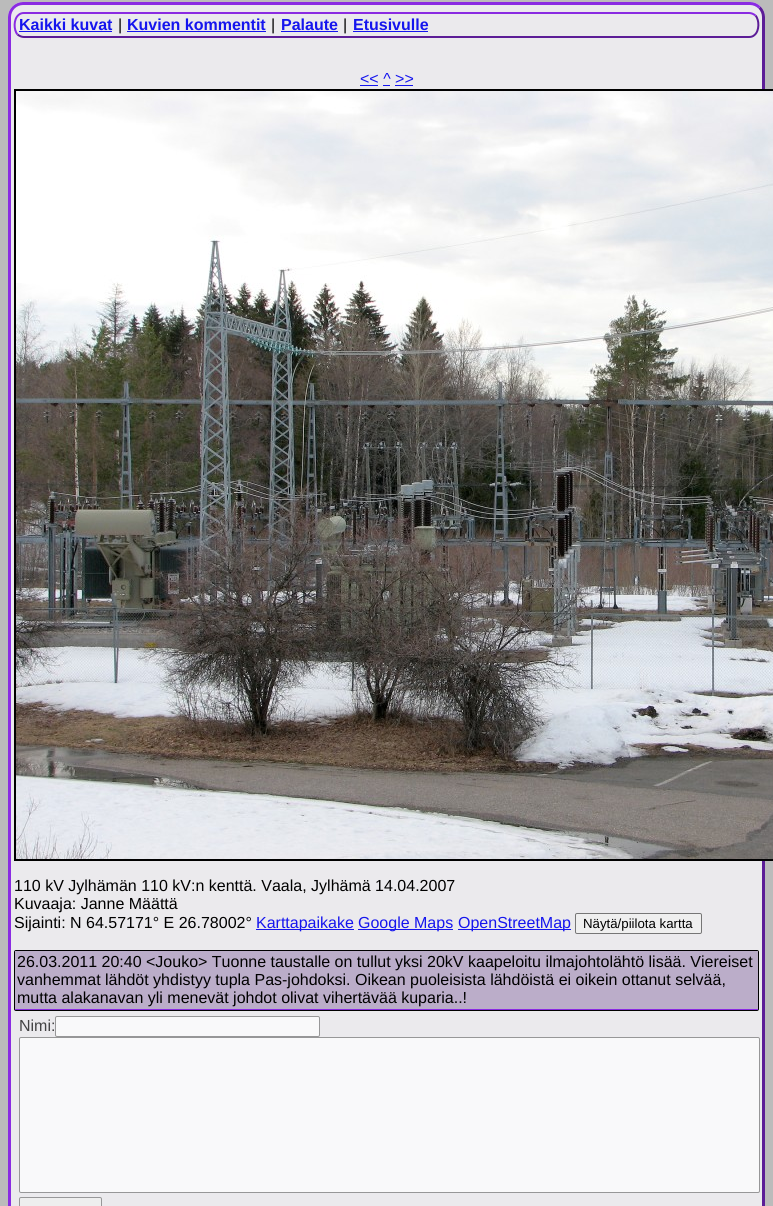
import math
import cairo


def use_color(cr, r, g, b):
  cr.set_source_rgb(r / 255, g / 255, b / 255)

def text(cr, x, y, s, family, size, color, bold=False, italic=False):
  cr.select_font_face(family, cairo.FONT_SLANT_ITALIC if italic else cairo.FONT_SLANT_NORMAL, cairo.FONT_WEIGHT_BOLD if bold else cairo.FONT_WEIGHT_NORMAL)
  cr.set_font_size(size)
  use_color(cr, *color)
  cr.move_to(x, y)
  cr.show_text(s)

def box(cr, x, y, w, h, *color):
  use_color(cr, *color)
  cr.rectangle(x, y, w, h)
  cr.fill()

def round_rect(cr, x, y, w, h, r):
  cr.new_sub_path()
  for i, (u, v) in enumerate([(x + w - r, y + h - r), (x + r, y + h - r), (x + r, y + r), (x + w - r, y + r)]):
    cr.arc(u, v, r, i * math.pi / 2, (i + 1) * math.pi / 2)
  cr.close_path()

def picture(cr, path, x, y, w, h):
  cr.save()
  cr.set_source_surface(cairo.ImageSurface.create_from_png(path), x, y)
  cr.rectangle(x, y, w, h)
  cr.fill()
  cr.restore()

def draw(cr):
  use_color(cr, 187, 187, 187)
  cr.paint()
  use_color(cr, 235, 234, 237)
  round_rect(cr, 8, 2, 757, 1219, 15)
  cr.fill()
  cr.new_path()
  cr.move_to(759.5, 7.5)
  cr.curve_to(762, 10, 763.5, 13.5, 763.5, 17)
  cr.line_to(763.5, 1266)
  cr.curve_to(763.5, 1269.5, 762, 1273, 759.5, 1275.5)
  cr.curve_to(757, 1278, 753.5, 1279.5, 750, 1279.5)
  cr.line_to(23, 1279.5)
  cr.curve_to(19.5, 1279.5, 16, 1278, 13.5, 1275.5)
  use_color(cr, 92, 29, 151)
  cr.set_line_width(3)
  cr.stroke()
  cr.new_path()
  cr.move_to(13.5, 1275.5)
  cr.curve_to(11, 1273, 9.5, 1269.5, 9.5, 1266)
  cr.line_to(9.5, 17)
  cr.curve_to(9.5, 13.5, 11, 10, 13.5, 7.5)
  cr.curve_to(16, 5, 19.5, 3.5, 23, 3.5)
  cr.line_to(750, 3.5)
  cr.curve_to(753.5, 3.5, 757, 5, 759.5, 7.5)
  use_color(cr, 138, 43, 226)
  cr.stroke()
  cr.new_path()
  cr.move_to(755.5, 15.5)
  cr.curve_to(759.5, 20, 759.5, 31, 754.5, 35)
  cr.curve_to(753, 36.5, 751, 37, 749, 37)
  cr.line_to(24, 37)
  cr.curve_to(21.5, 37, 19.5, 36, 17.5, 34.5)
  use_color(cr, 92, 29, 151)
  cr.set_line_width(2)
  cr.stroke()
  cr.new_path()
  cr.move_to(17.5, 34.5)
  cr.curve_to(13.5, 30, 13.5, 19, 18.5, 15)
  cr.curve_to(20, 13.5, 22, 13, 24, 13)
  cr.line_to(749, 13)
  cr.curve_to(751.5, 13, 753.5, 14, 755.5, 15.5)
  use_color(cr, 138, 43, 226)
  cr.stroke()
  box(cr, 19, 31, 93, 1, 21, 21, 238)
  box(cr, 127, 31, 139, 1, 21, 21, 238)
  box(cr, 281, 31, 57, 1, 21, 21, 238)
  box(cr, 353, 31, 75, 1, 21, 21, 238)
  box(cr, 360, 85, 18, 1, 21, 21, 238)
  box(cr, 383, 85, 7, 1, 21, 21, 238)
  box(cr, 395, 85, 18, 1, 21, 21, 238)
  cr.rectangle(15, 90, 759, 770)
  use_color(cr, 0, 0, 0)
  cr.stroke()
  picture(cr, "img_01.png", 16, 91, 757, 768)
  box(cr, 256, 929, 98, 1, 21, 21, 238)
  box(cr, 358, 929, 95, 1, 21, 21, 238)
  box(cr, 458, 929, 113, 1, 21, 21, 238)
  use_color(cr, 239, 239, 239)
  round_rect(cr, 575.5, 913.5, 126, 20, 1.5)
  cr.fill_preserve()
  use_color(cr, 118, 118, 118)
  cr.set_line_width(1)
  cr.stroke()
  round_rect(cr, 14.5, 950.5, 744, 60, 1.5)
  use_color(cr, 0, 0, 0)
  cr.stroke()
  box(cr, 15, 951, 743, 58, 187, 173, 201)
  box(cr, 15, 1009, 743, 1, 138, 43, 226)
  use_color(cr, 249, 249, 250)
  round_rect(cr, 55.5, 1016.5, 264, 20, 1.5)
  cr.fill_preserve()
  use_color(cr, 151, 151, 152)
  cr.stroke()
  use_color(cr, 249, 249, 250)
  round_rect(cr, 19.5, 1037.5, 740, 155, 1.5)
  cr.fill_preserve()
  use_color(cr, 151, 151, 152)
  cr.stroke()
  use_color(cr, 238, 238, 238)
  round_rect(cr, 19.5, 1197.5, 82, 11, 1.5)
  cr.fill_preserve()
  use_color(cr, 151, 151, 152)
  cr.stroke()
  text(cr, 19, 30, "Kaikki kuvat", "Liberation Sans", 16, (21, 21, 238), bold=True)
  text(cr, 118, 30, "|", "Liberation Sans", 16, (0, 0, 0))
  text(cr, 127, 30, "Kuvien kommentit", "Liberation Sans", 16, (21, 21, 238), bold=True)
  text(cr, 271, 30, "|", "Liberation Sans", 16, (0, 0, 0))
  text(cr, 281, 30, "Palaute", "Liberation Sans", 16, (21, 21, 238), bold=True)
  text(cr, 343, 30, "|", "Liberation Sans", 16, (0, 0, 0))
  text(cr, 353, 30, "Etusivulle", "Liberation Sans", 16, (21, 21, 238), bold=True)
  text(cr, 360, 84, "<< ^ >>", "Liberation Sans", 16, (21, 21, 238))
  text(cr, 14, 891, "110 kV Jylhämän 110 kV:n kenttä. Vaala, Jylhämä 14.04.2007", "Liberation Sans", 16, (0, 0, 0))
  text(cr, 14, 909, "Kuvaaja: Janne Määttä", "Liberation Sans", 16, (0, 0, 0))
  text(cr, 14, 928, "Sijainti: N 64.57171° E 26.78002°", "Liberation Sans", 16, (0, 0, 0))
  text(cr, 256, 928, "Karttapaikake", "Liberation Sans", 16, (21, 21, 238))
  text(cr, 358, 928, "Google Maps", "Liberation Sans", 16, (21, 21, 238))
  text(cr, 458, 928, "OpenStreetMap", "Liberation Sans", 16, (21, 21, 238))
  text(cr, 583, 928, "Näytä/piilota kartta", "Liberation Sans", 13.25, (0, 0, 0))
  text(cr, 17, 967, "26.03.2011 20:40 <Jouko> Tuonne taustalle on tullut yksi 20kV kaapeloitu ilmajohtolähtö lisää. Viereiset", "Liberation Sans", 16, (0, 0, 0))
  text(cr, 17, 985, "vanhemmat lähdöt yhdistyy tupla Pas-johdoksi. Oikean puoleisista lähdöistä ei oikein ottanut selvää,", "Liberation Sans", 16, (0, 0, 0))
  text(cr, 17, 1003, "mutta alakanavan yli menevät johdot olivat vihertävää kuparia..!", "Liberation Sans", 16, (0, 0, 0))
  text(cr, 19, 1031, "Nimi:", "Liberation Sans", 16, (67, 67, 68))


surface = cairo.ImageSurface(cairo.FORMAT_RGB24, 773, 1206)
cr = cairo.Context(surface)
options = cairo.FontOptions()
options.set_hint_metrics(cairo.HINT_METRICS_OFF)
options.set_hint_style(cairo.HINT_STYLE_NONE)
cr.set_font_options(options)
cr.set_miter_limit(4)
draw(cr)
surface.write_to_png("out.png")
